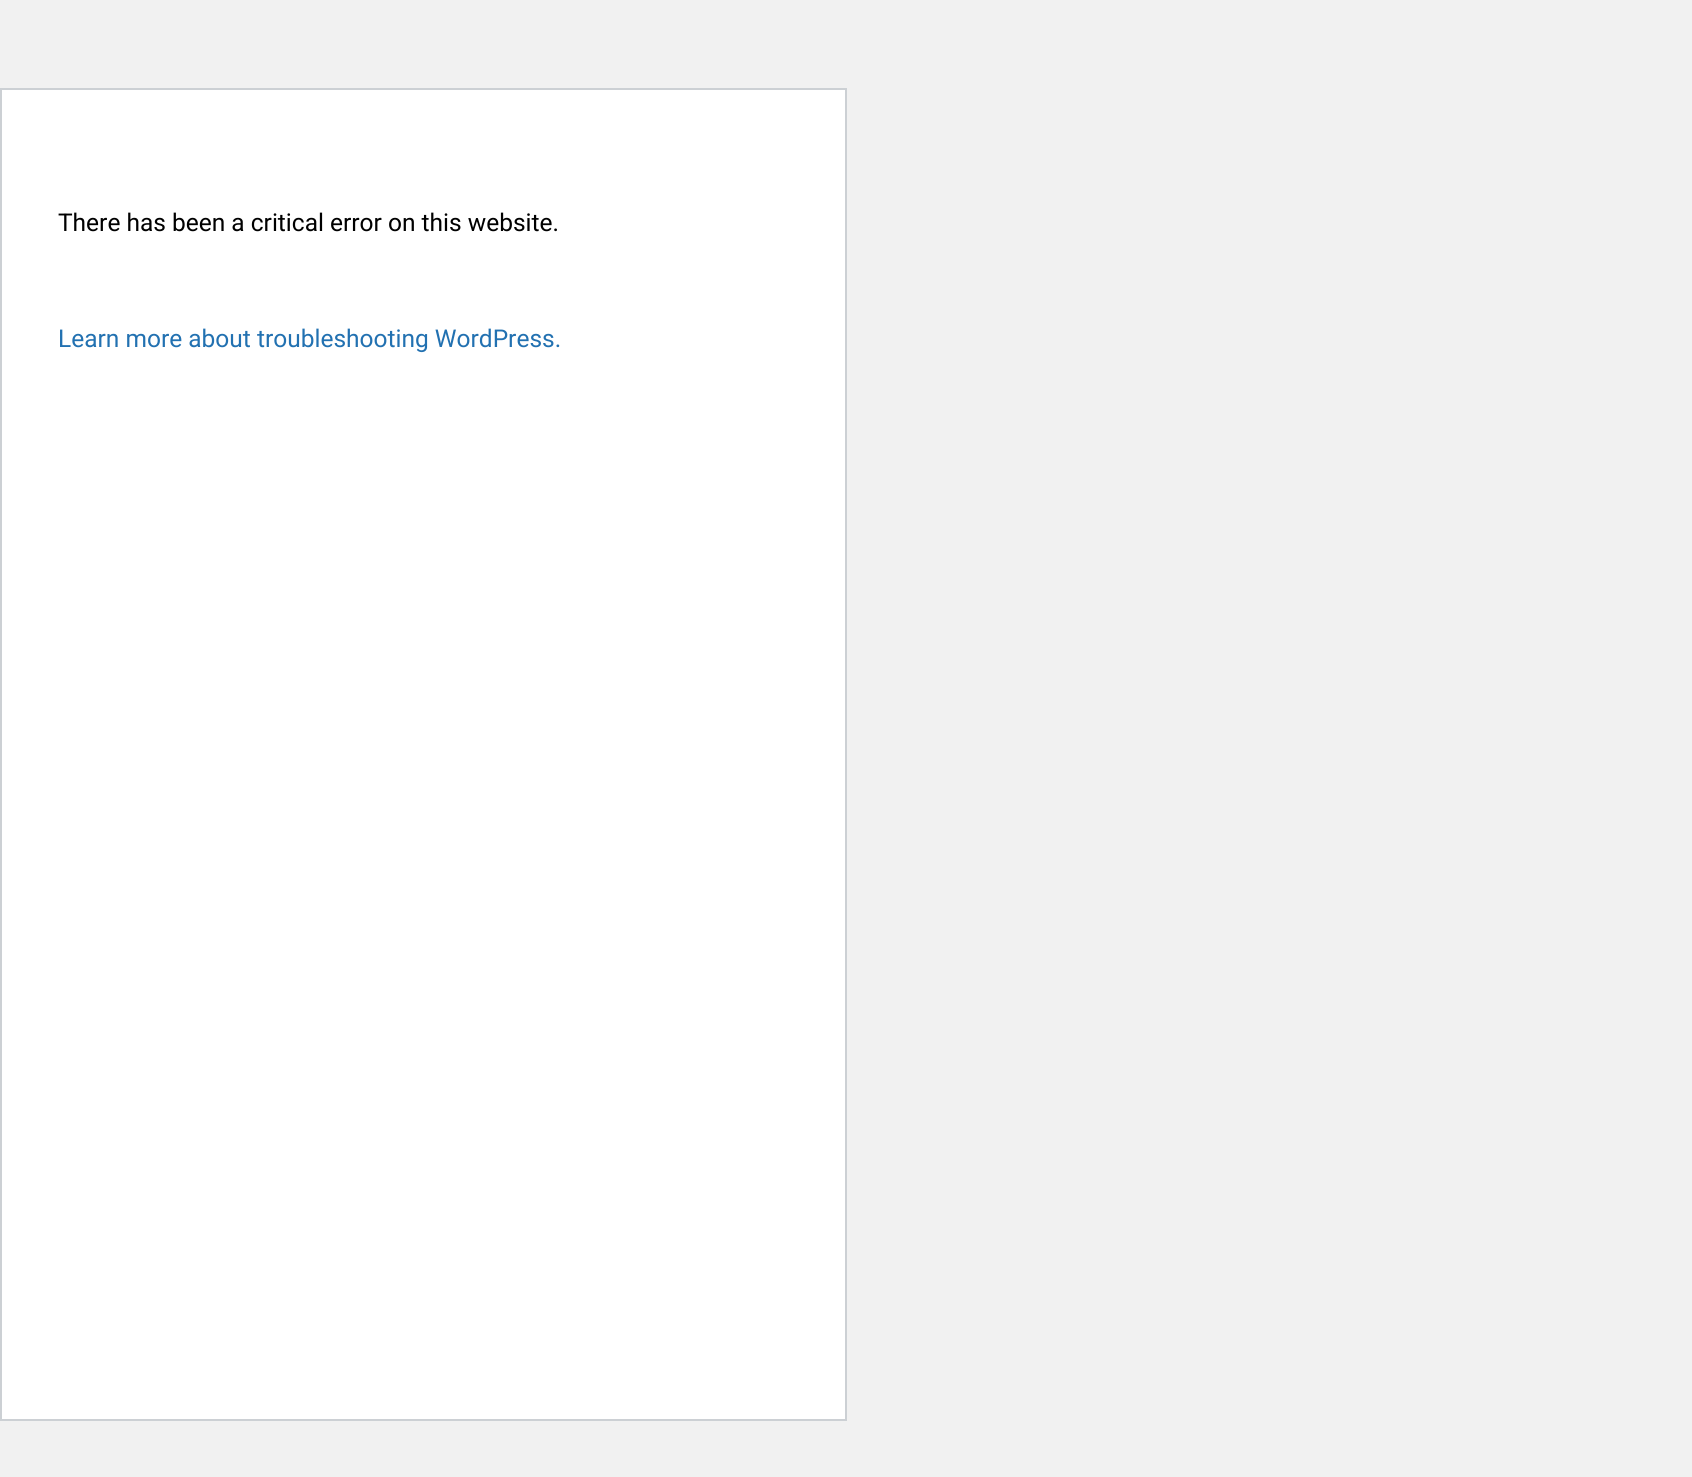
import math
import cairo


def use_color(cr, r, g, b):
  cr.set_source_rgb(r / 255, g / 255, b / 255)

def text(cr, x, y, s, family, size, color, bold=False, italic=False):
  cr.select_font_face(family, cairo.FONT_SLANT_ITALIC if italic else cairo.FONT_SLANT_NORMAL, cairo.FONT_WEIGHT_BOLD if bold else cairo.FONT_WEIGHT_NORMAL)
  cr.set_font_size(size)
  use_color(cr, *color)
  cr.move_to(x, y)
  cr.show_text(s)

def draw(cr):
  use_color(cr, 241, 241, 241)
  cr.paint()
  use_color(cr, 255, 255, 255)
  cr.rectangle(1, 89, 845, 1331)
  cr.fill_preserve()
  use_color(cr, 204, 208, 212)
  cr.stroke()
  text(cr, 58, 231, "There has been a critical error on this website.", "Roboto", 24.5, (0, 0, 0))
  text(cr, 58, 347, "Learn more about troubleshooting WordPress.", "Roboto", 24.5, (34, 113, 177))


surface = cairo.ImageSurface(cairo.FORMAT_RGB24, 1692, 1477)
cr = cairo.Context(surface)
options = cairo.FontOptions()
options.set_hint_metrics(cairo.HINT_METRICS_OFF)
options.set_hint_style(cairo.HINT_STYLE_NONE)
cr.set_font_options(options)
cr.set_miter_limit(4)
draw(cr)
surface.write_to_png("out.png")
